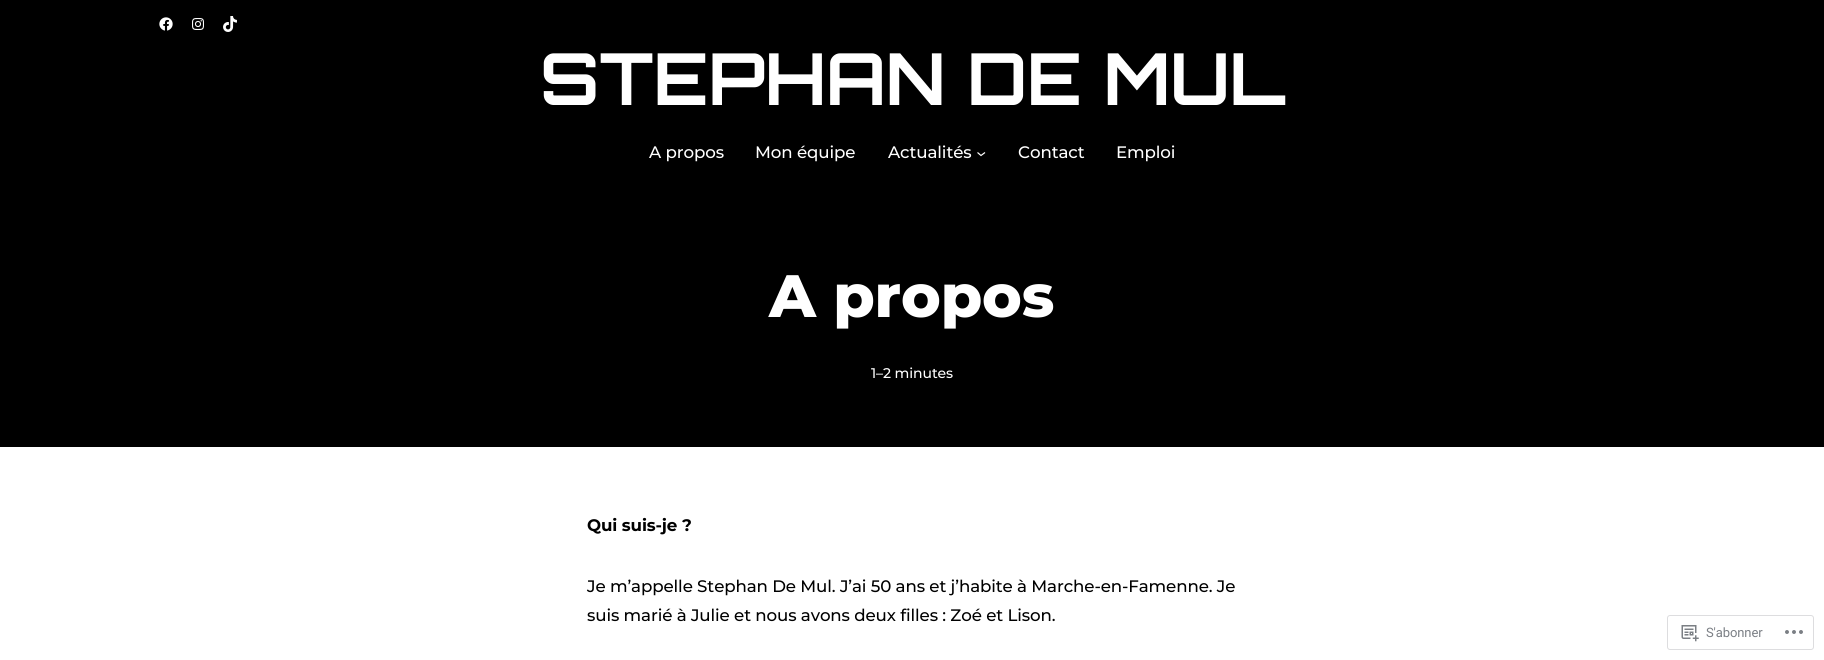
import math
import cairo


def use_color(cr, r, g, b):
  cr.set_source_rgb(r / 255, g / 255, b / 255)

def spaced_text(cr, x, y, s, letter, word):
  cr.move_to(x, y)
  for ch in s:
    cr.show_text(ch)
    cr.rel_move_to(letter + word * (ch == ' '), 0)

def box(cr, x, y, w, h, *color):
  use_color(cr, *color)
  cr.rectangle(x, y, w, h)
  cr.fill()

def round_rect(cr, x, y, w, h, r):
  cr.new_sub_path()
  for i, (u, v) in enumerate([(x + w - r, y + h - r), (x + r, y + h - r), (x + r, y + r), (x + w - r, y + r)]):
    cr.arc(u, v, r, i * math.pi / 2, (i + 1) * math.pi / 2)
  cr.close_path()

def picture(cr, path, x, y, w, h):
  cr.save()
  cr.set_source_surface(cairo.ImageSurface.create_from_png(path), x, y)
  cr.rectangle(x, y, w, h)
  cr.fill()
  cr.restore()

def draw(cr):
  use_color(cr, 255, 255, 255)
  cr.paint()
  box(cr, 0, 0, 1824, 447, 0, 0, 0)
  picture(cr, "img_01.png", 159, 17, 14, 14)
  picture(cr, "img_02.png", 192, 18, 12, 12)
  picture(cr, "img_03.png", 223, 16, 14, 16)
  cr.new_path()
  cr.move_to(977.5, 152.5)
  cr.line_to(981, 155.5)
  cr.line_to(985, 152.5)
  use_color(cr, 255, 255, 255)
  cr.set_line_width(1.2)
  cr.stroke()
  round_rect(cr, 1667.5, 615.5, 146, 34, 2.5)
  use_color(cr, 221, 221, 223)
  cr.set_line_width(1)
  cr.stroke()
  picture(cr, "img_04.png", 1681, 625, 18, 17)
  picture(cr, "img_05.png", 1785, 630, 18, 4)
  cr.select_font_face("Orbitron", cairo.FONT_SLANT_NORMAL, cairo.FONT_WEIGHT_BOLD)
  cr.set_font_size(71.75)
  use_color(cr, 255, 255, 255)
  spaced_text(cr, 540, 105, "STEPHAN DE MUL", -0.1, 0)
  cr.select_font_face("Montserrat Medium")
  cr.set_font_size(16.65)
  spaced_text(cr, 649, 158, "A propos", -0.1, 0)
  spaced_text(cr, 755, 158, "Mon équipe", -0.1, 0)
  spaced_text(cr, 888, 158, "Actualités", -0.1, 0)
  spaced_text(cr, 1018, 158, "Contact", -0.1, 0)
  spaced_text(cr, 1116, 158, "Emploi", -0.1, 0)
  cr.select_font_face("Montserrat ExtraBold")
  cr.set_font_size(59.75)
  spaced_text(cr, 769, 317, "A propos", -0.1, 0)
  cr.select_font_face("Montserrat Medium")
  cr.set_font_size(14)
  spaced_text(cr, 871, 378, "1–2 minutes", -0.1, 0)
  cr.select_font_face("Montserrat", cairo.FONT_SLANT_NORMAL, cairo.FONT_WEIGHT_BOLD)
  cr.set_font_size(16.65)
  use_color(cr, 0, 0, 0)
  spaced_text(cr, 587, 531, "Qui suis-je ?", -0.1, 0)
  cr.select_font_face("Montserrat Medium")
  spaced_text(cr, 587, 592, "Je m’appelle Stephan De Mul. J’ai 50 ans et j’habite à Marche-en-Famenne. Je", -0.1, 0)
  spaced_text(cr, 587, 621, "suis marié à Julie et nous avons deux filles : Zoé et Lison.", -0.1, 0)
  cr.select_font_face("Roboto")
  cr.set_font_size(13)
  use_color(cr, 123, 127, 133)
  spaced_text(cr, 1706, 637, "S'abonner", -0.1, 0)


surface = cairo.ImageSurface(cairo.FORMAT_RGB24, 1824, 660)
cr = cairo.Context(surface)
options = cairo.FontOptions()
options.set_hint_metrics(cairo.HINT_METRICS_OFF)
options.set_hint_style(cairo.HINT_STYLE_NONE)
cr.set_font_options(options)
cr.set_miter_limit(4)
draw(cr)
surface.write_to_png("out.png")
